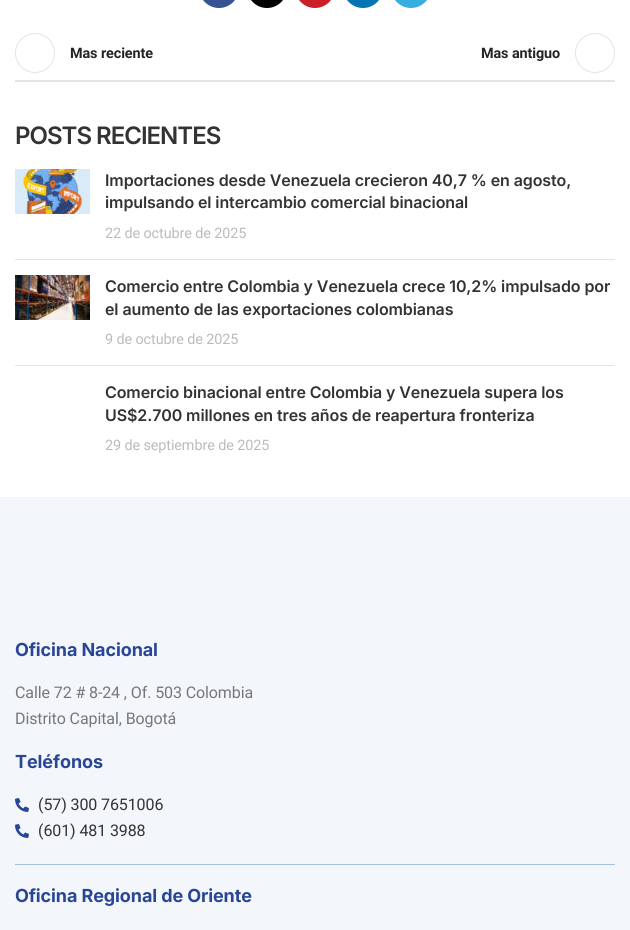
import math
import cairo


def use_color(cr, r, g, b):
  cr.set_source_rgb(r / 255, g / 255, b / 255)

def spaced_text(cr, x, y, s, letter, word):
  cr.move_to(x, y)
  for ch in s:
    cr.show_text(ch)
    cr.rel_move_to(letter + word * (ch == ' '), 0)

def box(cr, x, y, w, h, *color):
  use_color(cr, *color)
  cr.rectangle(x, y, w, h)
  cr.fill()

def round_rect(cr, x, y, w, h, r):
  cr.new_sub_path()
  for i, (u, v) in enumerate([(x + w - r, y + h - r), (x + r, y + h - r), (x + r, y + r), (x + w - r, y + r)]):
    cr.arc(u, v, r, i * math.pi / 2, (i + 1) * math.pi / 2)
  cr.close_path()

def picture(cr, path, x, y, w, h):
  cr.save()
  cr.set_source_surface(cairo.ImageSurface.create_from_png(path), x, y)
  cr.rectangle(x, y, w, h)
  cr.fill()
  cr.restore()

def draw(cr):
  use_color(cr, 255, 255, 255)
  cr.paint()
  use_color(cr, 54, 84, 147)
  round_rect(cr, 199, -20, 40, 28, 20)
  cr.fill()
  use_color(cr, 0, 0, 0)
  round_rect(cr, 247, -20, 40, 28, 20)
  cr.fill()
  use_color(cr, 203, 32, 39)
  round_rect(cr, 295, -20, 40, 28, 20)
  cr.fill()
  use_color(cr, 2, 116, 179)
  round_rect(cr, 343, -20, 40, 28, 20)
  cr.fill()
  use_color(cr, 55, 174, 226)
  round_rect(cr, 391, -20, 40, 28, 20)
  cr.fill()
  box(cr, 15, 80, 600, 2, 228, 228, 228)
  cr.arc(35, 53, 19.5, 0, 2 * math.pi)
  cr.set_line_width(1)
  cr.stroke()
  cr.arc(595, 53, 19.5, 0, 2 * math.pi)
  cr.stroke()
  box(cr, 15, 259, 600, 1, 228, 228, 228)
  picture(cr, "img_01.png", 15, 169, 75, 45)
  box(cr, 15, 365, 600, 1, 228, 228, 228)
  picture(cr, "img_02.png", 15, 275, 75, 45)
  box(cr, 0, 497, 630, 433, 243, 246, 250)
  picture(cr, "img_03.png", 15, 798, 14, 14)
  picture(cr, "img_03.png", 15, 824, 14, 14)
  box(cr, 15, 864, 600, 1, 168, 191, 221)
  cr.select_font_face("Roboto", cairo.FONT_SLANT_NORMAL, cairo.FONT_WEIGHT_BOLD)
  cr.set_font_size(14.4)
  use_color(cr, 36, 36, 36)
  spaced_text(cr, 70, 58, "Mas reciente", -0.1, 0)
  spaced_text(cr, 481, 58, "Mas antiguo", -0.1, 0)
  cr.select_font_face("Inter SemiBold")
  cr.set_font_size(24)
  use_color(cr, 51, 51, 51)
  spaced_text(cr, 15, 144, "POSTS RECIENTES", -1, 0)
  cr.set_font_size(16)
  spaced_text(cr, 105, 186, "Importaciones desde Venezuela crecieron 40,7 % en agosto,", -0.1, 0)
  spaced_text(cr, 105, 208, "impulsando el intercambio comercial binacional", -0.1, 0)
  cr.select_font_face("Roboto")
  cr.set_font_size(14.4)
  use_color(cr, 187, 187, 187)
  spaced_text(cr, 105, 238, "22 de octubre de 2025", -0.1, 0)
  cr.select_font_face("Inter SemiBold")
  cr.set_font_size(16)
  use_color(cr, 51, 51, 51)
  spaced_text(cr, 105, 292, "Comercio entre Colombia y Venezuela crece 10,2% impulsado por", -0.1, 0)
  spaced_text(cr, 105, 315, "el aumento de las exportaciones colombianas", -0.1, 0)
  cr.select_font_face("Roboto")
  cr.set_font_size(14.4)
  use_color(cr, 187, 187, 187)
  spaced_text(cr, 105, 344, "9 de octubre de 2025", -0.1, 0)
  cr.select_font_face("Inter SemiBold")
  cr.set_font_size(16)
  use_color(cr, 51, 51, 51)
  spaced_text(cr, 105, 398, "Comercio binacional entre Colombia y Venezuela supera los", -0.1, 0)
  spaced_text(cr, 105, 421, "US$2.700 millones en tres años de reapertura fronteriza", -0.1, 0)
  cr.select_font_face("Roboto")
  cr.set_font_size(14.4)
  use_color(cr, 187, 187, 187)
  spaced_text(cr, 105, 450, "29 de septiembre de 2025", -0.1, 0)
  cr.select_font_face("Inter", cairo.FONT_SLANT_NORMAL, cairo.FONT_WEIGHT_BOLD)
  cr.set_font_size(18)
  use_color(cr, 40, 70, 149)
  spaced_text(cr, 15, 656, "Oficina Nacional", -0.1, 0)
  cr.select_font_face("Roboto")
  cr.set_font_size(16)
  use_color(cr, 119, 119, 119)
  spaced_text(cr, 15, 698, "Calle 72 # 8-24 , Of. 503 Colombia", -0.1, 0)
  spaced_text(cr, 15, 724, "Distrito Capital, Bogotá", -0.1, 0)
  cr.select_font_face("Inter", cairo.FONT_SLANT_NORMAL, cairo.FONT_WEIGHT_BOLD)
  cr.set_font_size(18)
  use_color(cr, 40, 70, 149)
  spaced_text(cr, 15, 768, "Teléfonos", -0.1, 0)
  cr.select_font_face("Roboto")
  cr.set_font_size(16)
  use_color(cr, 51, 51, 51)
  spaced_text(cr, 38, 810, "(57) 300 7651006", -0.1, 0)
  spaced_text(cr, 38, 836, "(601) 481 3988", -0.1, 0)
  cr.select_font_face("Inter", cairo.FONT_SLANT_NORMAL, cairo.FONT_WEIGHT_BOLD)
  cr.set_font_size(18)
  use_color(cr, 40, 70, 149)
  spaced_text(cr, 15, 902, "Oficina Regional de Oriente", -0.1, 0)


surface = cairo.ImageSurface(cairo.FORMAT_RGB24, 630, 930)
cr = cairo.Context(surface)
options = cairo.FontOptions()
options.set_hint_metrics(cairo.HINT_METRICS_OFF)
options.set_hint_style(cairo.HINT_STYLE_NONE)
cr.set_font_options(options)
cr.set_miter_limit(4)
draw(cr)
surface.write_to_png("out.png")
